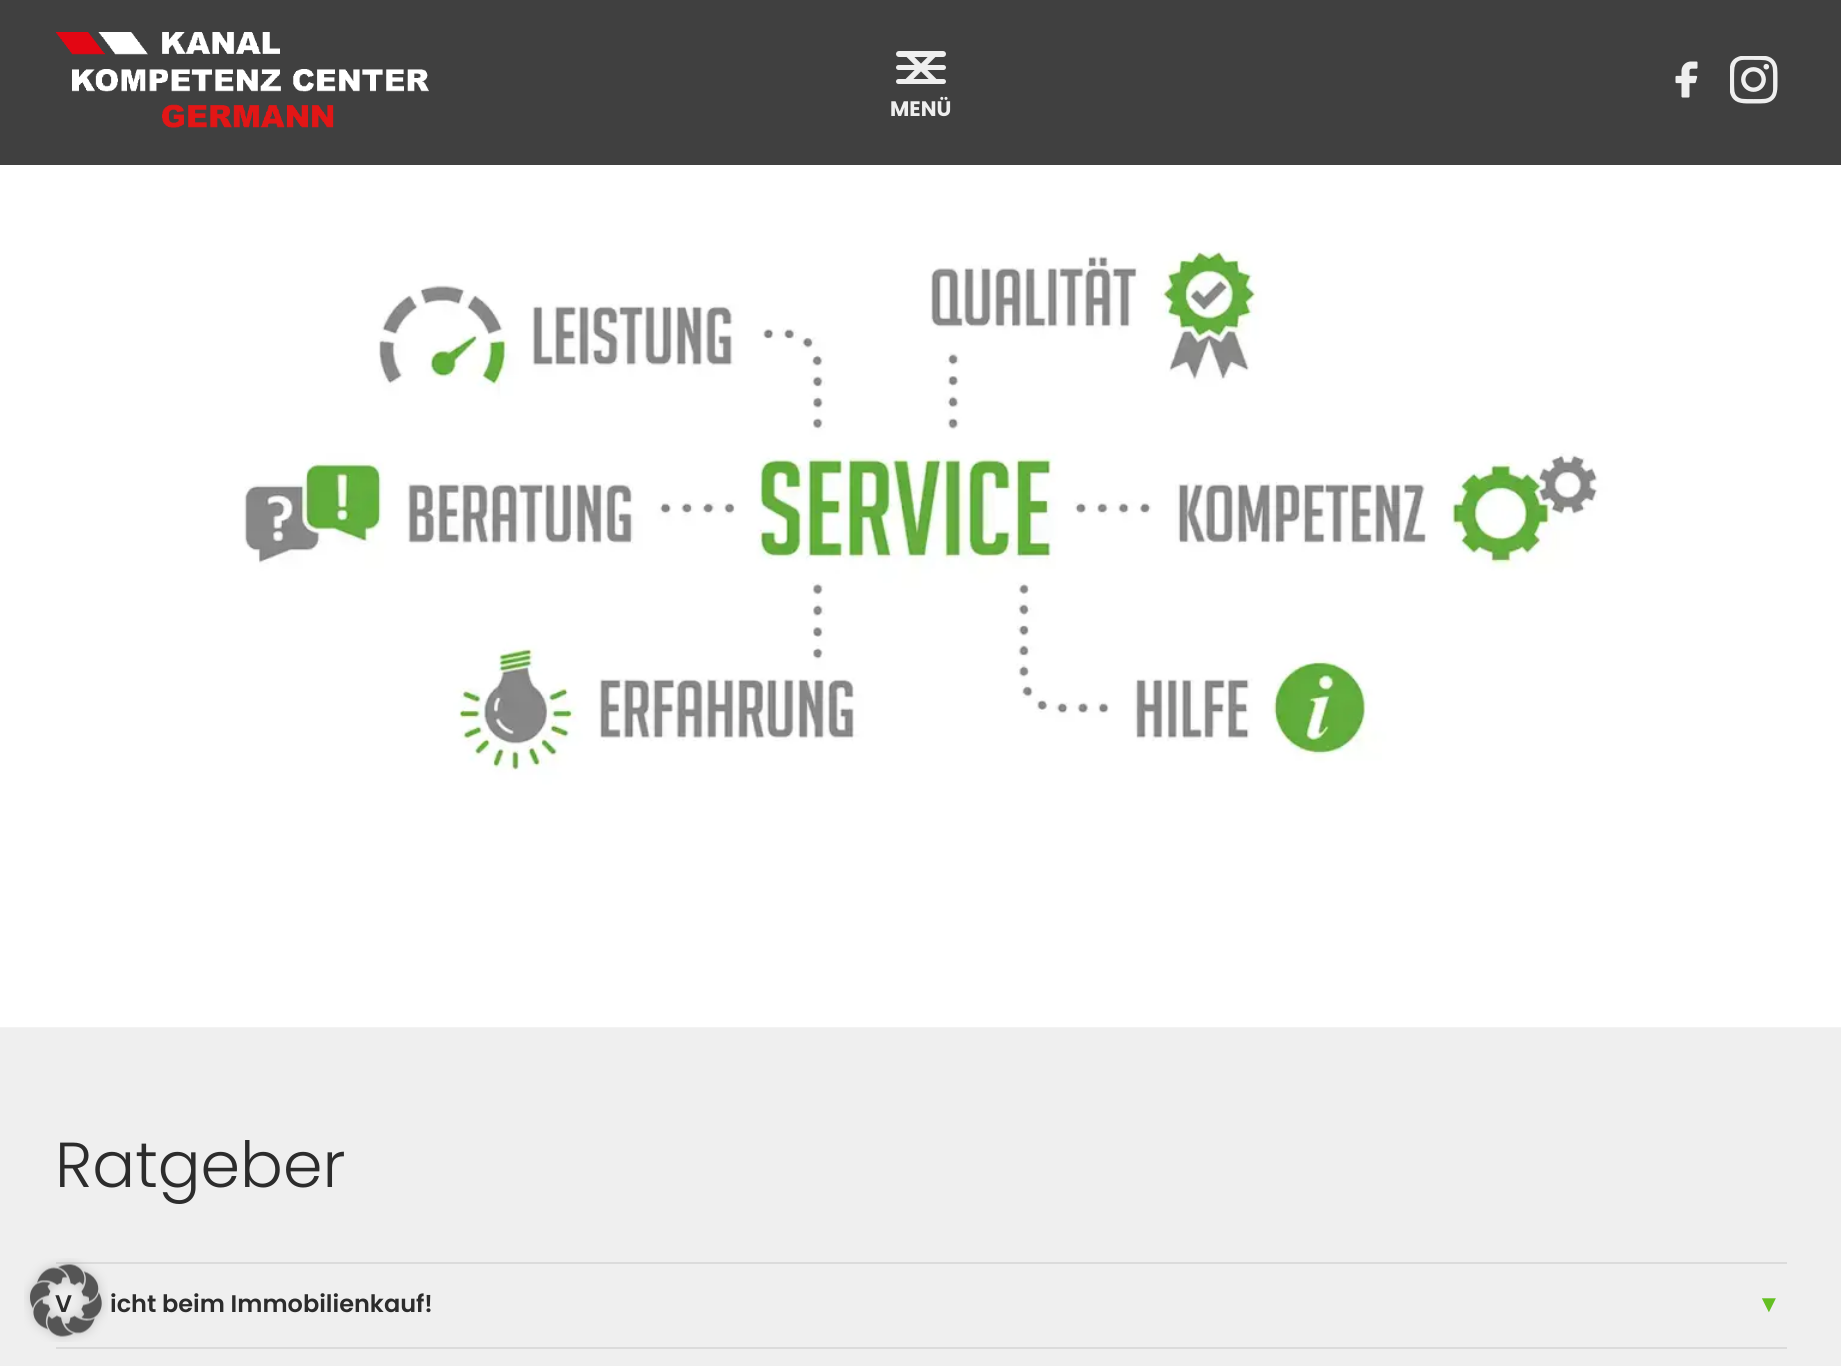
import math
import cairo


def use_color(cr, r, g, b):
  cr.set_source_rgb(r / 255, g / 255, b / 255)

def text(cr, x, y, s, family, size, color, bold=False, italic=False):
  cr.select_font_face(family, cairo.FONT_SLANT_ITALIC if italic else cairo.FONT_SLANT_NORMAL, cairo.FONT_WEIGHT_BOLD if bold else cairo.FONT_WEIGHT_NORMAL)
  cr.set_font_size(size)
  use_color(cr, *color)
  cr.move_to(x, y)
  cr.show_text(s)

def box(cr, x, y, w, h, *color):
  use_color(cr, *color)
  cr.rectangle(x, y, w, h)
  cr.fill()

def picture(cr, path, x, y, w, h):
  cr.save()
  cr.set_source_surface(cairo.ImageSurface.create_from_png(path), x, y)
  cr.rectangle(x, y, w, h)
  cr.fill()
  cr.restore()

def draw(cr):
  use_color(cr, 239, 239, 239)
  cr.paint()
  box(cr, 0, 0, 1841, 165, 64, 64, 64)
  picture(cr, "img_01.png", 55, 32, 374, 96)
  picture(cr, "img_02.png", 1675, 61, 23, 37)
  picture(cr, "img_03.png", 1730, 56, 48, 48)
  picture(cr, "img_04.png", 896, 51, 50, 33)
  picture(cr, "img_05.png", 0, 165, 1841, 863)
  box(cr, 56, 1262, 1731, 2, 219, 219, 219)
  box(cr, 56, 1347, 1731, 2, 219, 219, 219)
  text(cr, 890, 116, "MENÜ", "Poppins", 21, (239, 239, 239), bold=True)
  text(cr, 55, 1187, "Ratgeber", "Poppins Light", 63.5, (44, 44, 44))
  text(cr, 55, 1312, "V", "Poppins SemiBold", 24, (44, 44, 44))
  text(cr, 110, 1312, "icht beim Immobilienkauf!", "Poppins SemiBold", 24, (44, 44, 44))
  text(cr, 1757, 1312, "▼", "Liberation Sans", 24, (100, 191, 34), bold=True)
  picture(cr, "img_06.png", 24, 1258, 84, 84)


surface = cairo.ImageSurface(cairo.FORMAT_RGB24, 1841, 1366)
cr = cairo.Context(surface)
options = cairo.FontOptions()
options.set_hint_metrics(cairo.HINT_METRICS_OFF)
options.set_hint_style(cairo.HINT_STYLE_NONE)
cr.set_font_options(options)
cr.set_miter_limit(4)
draw(cr)
surface.write_to_png("out.png")
